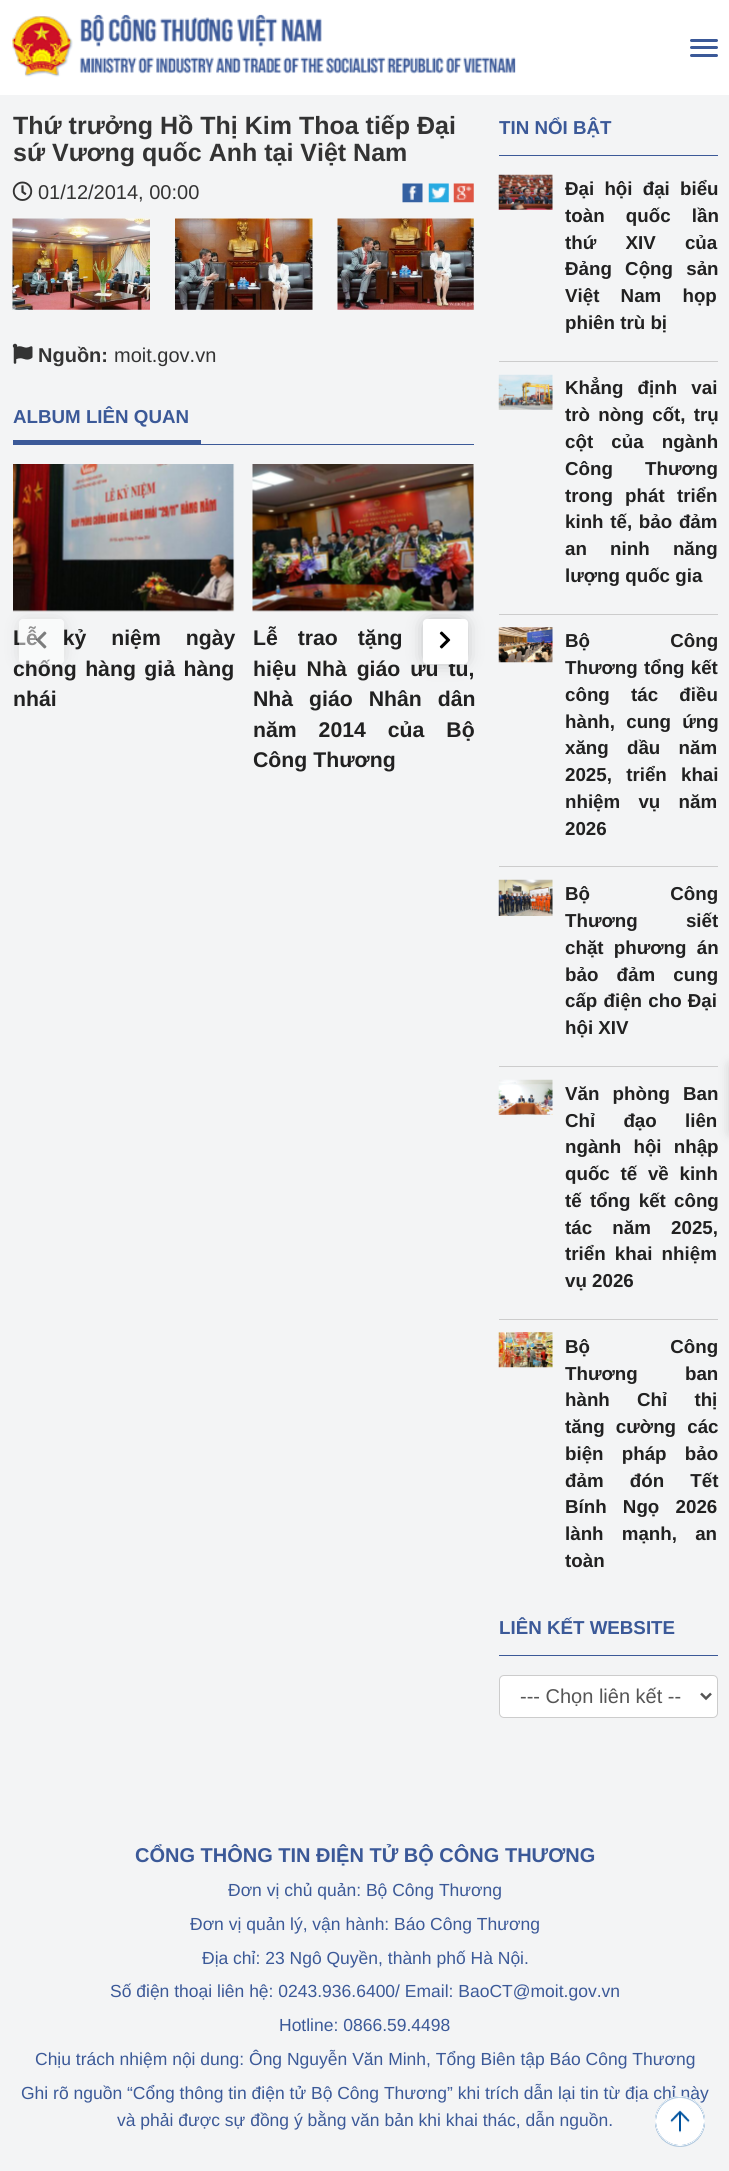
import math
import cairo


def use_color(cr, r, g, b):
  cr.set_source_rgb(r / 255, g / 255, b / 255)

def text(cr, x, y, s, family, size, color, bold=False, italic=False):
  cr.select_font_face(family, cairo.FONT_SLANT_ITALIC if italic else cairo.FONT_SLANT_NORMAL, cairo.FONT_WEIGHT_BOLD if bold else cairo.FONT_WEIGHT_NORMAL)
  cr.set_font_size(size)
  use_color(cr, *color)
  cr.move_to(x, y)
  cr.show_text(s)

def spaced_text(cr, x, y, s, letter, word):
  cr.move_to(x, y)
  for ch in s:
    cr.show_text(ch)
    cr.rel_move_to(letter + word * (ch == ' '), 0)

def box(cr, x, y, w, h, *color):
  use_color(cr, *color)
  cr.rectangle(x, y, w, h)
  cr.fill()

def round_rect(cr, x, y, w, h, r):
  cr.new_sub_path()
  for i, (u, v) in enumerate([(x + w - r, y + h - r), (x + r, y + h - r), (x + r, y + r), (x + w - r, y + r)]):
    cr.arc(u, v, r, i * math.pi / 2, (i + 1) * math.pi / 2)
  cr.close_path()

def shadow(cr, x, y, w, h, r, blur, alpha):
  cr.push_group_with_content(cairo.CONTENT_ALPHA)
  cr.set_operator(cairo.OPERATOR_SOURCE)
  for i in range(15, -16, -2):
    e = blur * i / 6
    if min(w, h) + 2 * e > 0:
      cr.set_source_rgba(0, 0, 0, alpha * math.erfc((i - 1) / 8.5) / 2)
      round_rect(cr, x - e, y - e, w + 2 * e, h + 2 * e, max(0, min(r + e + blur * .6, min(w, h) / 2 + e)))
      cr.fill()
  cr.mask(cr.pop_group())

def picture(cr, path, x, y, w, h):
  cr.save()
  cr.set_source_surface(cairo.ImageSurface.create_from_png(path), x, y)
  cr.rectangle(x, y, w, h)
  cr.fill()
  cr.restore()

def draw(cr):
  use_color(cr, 243, 244, 245)
  cr.paint()
  box(cr, 0, 0, 729, 95, 255, 255, 255)
  picture(cr, "img_01.png", 12, 14, 504, 63)
  use_color(cr, 59, 89, 152)
  round_rect(cr, 690, 39, 28, 3, 1.5)
  cr.fill()
  round_rect(cr, 690, 46, 28, 3, 1.5)
  cr.fill()
  round_rect(cr, 690, 54, 28, 3, 1.5)
  cr.fill()
  picture(cr, "img_02.png", 12, 181, 21, 20)
  picture(cr, "img_03.png", 402, 183, 21, 20)
  picture(cr, "img_04.png", 428, 183, 21, 20)
  picture(cr, "img_05.png", 453, 183, 21, 20)
  picture(cr, "img_06.png", 12, 218, 138, 92)
  picture(cr, "img_07.png", 175, 218, 138, 92)
  picture(cr, "img_08.png", 337, 218, 137, 92)
  picture(cr, "img_09.png", 12, 343, 21, 21)
  box(cr, 13, 444, 461, 1, 59, 89, 152)
  box(cr, 13, 440, 188, 4, 59, 89, 152)
  picture(cr, "img_12.png", 13, 464, 222, 148)
  cr.save()
  cr.set_fill_rule(cairo.FILL_RULE_EVEN_ODD)
  cr.new_path()
  cr.move_to(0, 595)
  cr.line_to(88, 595)
  cr.line_to(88, 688)
  cr.line_to(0, 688)
  cr.close_path()
  cr.move_to(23, 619)
  cr.line_to(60, 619)
  cr.curve_to(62, 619, 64, 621, 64, 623)
  cr.line_to(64, 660)
  cr.curve_to(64, 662, 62, 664, 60, 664)
  cr.line_to(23, 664)
  cr.curve_to(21, 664, 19, 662, 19, 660)
  cr.line_to(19, 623)
  cr.curve_to(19, 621, 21, 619, 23, 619)
  cr.close_path()
  cr.clip()
  use_color(cr, 0, 0, 0)
  shadow(cr, 25, 625, 33, 33, 0, 9.5, 0.2)
  cr.restore()
  picture(cr, "img_13.png", 252, 464, 222, 148)
  use_color(cr, 0, 0, 0)
  shadow(cr, 429, 625, 32, 33, 0, 9.5, 0.4)
  box(cr, 499, 155, 219, 1, 59, 89, 152)
  box(cr, 499, 361, 219, 1, 204, 204, 204)
  picture(cr, "img_14.png", 498, 174, 55, 36)
  box(cr, 499, 614, 219, 1, 204, 204, 204)
  picture(cr, "img_15.png", 498, 374, 55, 36)
  box(cr, 499, 866, 219, 1, 204, 204, 204)
  picture(cr, "img_16.png", 498, 627, 55, 36)
  box(cr, 499, 1066, 219, 1, 204, 204, 204)
  picture(cr, "img_17.png", 498, 879, 55, 37)
  box(cr, 499, 1319, 219, 1, 204, 204, 204)
  picture(cr, "img_18.png", 498, 1079, 55, 36)
  picture(cr, "img_19.png", 498, 1332, 55, 36)
  box(cr, 499, 1655, 219, 1, 59, 89, 152)
  use_color(cr, 255, 255, 255)
  round_rect(cr, 499.5, 1675.5, 218, 42, 4.5)
  cr.fill_preserve()
  use_color(cr, 204, 204, 204)
  cr.set_line_width(1)
  cr.stroke()
  cr.new_path()
  cr.move_to(701, 1693.5)
  cr.line_to(706, 1698.5)
  cr.line_to(711, 1693.5)
  use_color(cr, 85, 85, 85)
  cr.set_line_width(2.5)
  cr.stroke()
  use_color(cr, 0, 0, 0)
  shadow(cr, 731, 1065, 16, 68, 0, 6, 0.2)
  text(cr, 13, 134, "Thứ trưởng Hồ Thị Kim Thoa tiếp Đại", "Liberation Sans", 25, (51, 51, 51), bold=True)
  text(cr, 13, 161, "sứ Vương quốc Anh tại Việt Nam", "Liberation Sans", 25, (51, 51, 51), bold=True)
  text(cr, 38, 199, "01/12/2014, 00:00", "Liberation Sans", 20, (51, 51, 51))
  text(cr, 38, 362, "Nguồn:", "Liberation Sans", 20, (51, 51, 51), bold=True)
  text(cr, 114, 362, "moit.gov.vn", "Liberation Sans", 20, (51, 51, 51))
  text(cr, 13, 423, "ALBUM LIÊN QUAN", "Liberation Sans", 18.75, (59, 89, 152), bold=True)
  cr.set_font_size(21.25)
  use_color(cr, 33, 33, 33)
  spaced_text(cr, 13, 645, "Lễ kỷ niệm ngày", 0, 19)
  spaced_text(cr, 13, 676, "chống hàng giả hàng", 0, 2.5)
  cr.set_source_rgba(1, 1, 1, 0.5)
  round_rect(cr, 19, 619, 45, 45, 4)
  cr.fill()
  picture(cr, "img_10.png", 36, 631, 11, 18)
  text(cr, 13, 706, "nhái", "Liberation Sans", 21.25, (33, 33, 33), bold=True)
  spaced_text(cr, 253, 645, "Lễ trao tặng", 0, 14)
  spaced_text(cr, 253, 676, "hiệu Nhà giáo ưu tú,", 0, 4)
  use_color(cr, 255, 255, 255)
  round_rect(cr, 423, 619, 45, 45, 4)
  cr.fill()
  picture(cr, "img_11.png", 439, 631, 12, 18)
  use_color(cr, 33, 33, 33)
  spaced_text(cr, 253, 706, "Nhà giáo Nhân dân", 0, 10)
  spaced_text(cr, 253, 737, "năm 2014 của Bộ", 0, 16)
  text(cr, 253, 767, "Công Thương", "Liberation Sans", 21.25, (33, 33, 33), bold=True)
  text(cr, 499, 134, "TIN NỔI BẬT", "Liberation Sans", 18.75, (59, 89, 152), bold=True)
  cr.save()
  cr.rectangle(565, 175, 153, 161)
  cr.clip()
  use_color(cr, 33, 33, 33)
  spaced_text(cr, 565, 195, "Đại hội đại biểu", 0, 5)
  cr.restore()
  use_color(cr, 33, 33, 33)
  spaced_text(cr, 565, 222, "toàn quốc lần", 0, 16)
  spaced_text(cr, 565, 249, "thứ XIV của", 0, 24)
  cr.save()
  cr.rectangle(565, 175, 153, 161)
  cr.clip()
  spaced_text(cr, 565, 275, "Đảng Cộng sản", 0, 8)
  cr.restore()
  spaced_text(cr, 565, 302, "Việt Nam họp", 0, 16)
  text(cr, 565, 329, "phiên trù bị", "Liberation Sans", 18.75, (33, 33, 33), bold=True)
  spaced_text(cr, 565, 394, "Khẳng định vai", 0, 9)
  spaced_text(cr, 565, 421, "trò nòng cốt, trụ", 0, 3)
  spaced_text(cr, 565, 448, "cột của ngành", 0, 13)
  spaced_text(cr, 565, 475, "Công Thương", 0, 27)
  spaced_text(cr, 565, 502, "trong phát triển", 0, 7)
  spaced_text(cr, 565, 528, "kinh tế, bảo đảm", 0, 1.5)
  spaced_text(cr, 565, 555, "an ninh năng", 0, 18)
  text(cr, 565, 582, "lượng quốc gia", "Liberation Sans", 18.75, (33, 33, 33), bold=True)
  spaced_text(cr, 565, 647, "Bộ Công", 0, 75)
  spaced_text(cr, 565, 674, "Thương tổng kết", 0, 1)
  spaced_text(cr, 565, 701, "công tác điều", 0, 16)
  spaced_text(cr, 565, 728, "hành, cung ứng", 0, 6)
  spaced_text(cr, 565, 754, "xăng dầu năm", 0, 13)
  spaced_text(cr, 565, 781, "2025, triển khai", 0, 9)
  spaced_text(cr, 565, 808, "nhiệm vụ năm", 0, 13)
  text(cr, 565, 835, "2026", "Liberation Sans", 18.75, (33, 33, 33), bold=True)
  spaced_text(cr, 565, 900, "Bộ Công", 0, 75)
  spaced_text(cr, 565, 927, "Thương siết", 0, 43)
  spaced_text(cr, 565, 954, "chặt phương án", 0, 5)
  spaced_text(cr, 565, 981, "bảo đảm cung", 0, 13)
  spaced_text(cr, 565, 1007, "cấp điện cho Đại", 0, 1)
  text(cr, 565, 1034, "hội XIV", "Liberation Sans", 18.75, (33, 33, 33), bold=True)
  spaced_text(cr, 565, 1100, "Văn phòng Ban", 0, 8)
  spaced_text(cr, 565, 1127, "Chỉ đạo liên", 0, 23)
  spaced_text(cr, 565, 1153, "ngành hội nhập", 0, 7)
  spaced_text(cr, 565, 1180, "quốc tế về kinh", 0, 5.5)
  spaced_text(cr, 565, 1207, "tế tổng kết công", 0, 3)
  spaced_text(cr, 565, 1234, "tác năm 2025,", 0, 15)
  spaced_text(cr, 565, 1260, "triển khai nhiệm", 0, 4)
  text(cr, 565, 1287, "vụ 2026", "Liberation Sans", 18.75, (33, 33, 33), bold=True)
  spaced_text(cr, 565, 1353, "Bộ Công", 0, 75)
  spaced_text(cr, 565, 1380, "Thương ban", 0, 42)
  spaced_text(cr, 565, 1406, "hành Chỉ thị", 0, 22)
  spaced_text(cr, 565, 1433, "tăng cường các", 0, 6)
  spaced_text(cr, 565, 1460, "biện pháp bảo", 0, 13)
  spaced_text(cr, 565, 1487, "đảm đón Tết", 0, 21)
  spaced_text(cr, 565, 1513, "Bính Ngọ 2026", 0, 11)
  spaced_text(cr, 565, 1540, "lành mạnh, an", 0, 13)
  text(cr, 565, 1567, "toàn", "Liberation Sans", 18.75, (33, 33, 33), bold=True)
  text(cr, 499, 1634, "LIÊN KẾT WEBSITE", "Liberation Sans", 18.75, (59, 89, 152), bold=True)
  text(cr, 520, 1703, "--- Chọn liên kết --", "Liberation Sans", 20, (85, 85, 85))
  text(cr, 135, 1862, "CỔNG THÔNG TIN ĐIỆN TỬ BỘ CÔNG THƯƠNG", "Liberation Sans", 20, (59, 89, 152), bold=True)
  text(cr, 228, 1896, "Đơn vị chủ quản: Bộ Công Thương", "Liberation Sans", 17.5, (59, 89, 152))
  text(cr, 190, 1930, "Đơn vị quản lý, vận hành: Báo Công Thương", "Liberation Sans", 17.5, (59, 89, 152))
  text(cr, 202, 1964, "Địa chỉ: 23 Ngô Quyền, thành phố Hà Nội.", "Liberation Sans", 17.5, (59, 89, 152))
  text(cr, 110, 1997, "Số điện thoại liên hệ: 0243.936.6400/ Email: BaoCT@moit.gov.vn", "Liberation Sans", 17.5, (59, 89, 152))
  text(cr, 279, 2031, "Hotline: 0866.59.4498", "Liberation Sans", 17.5, (59, 89, 152))
  text(cr, 35, 2065, "Chịu trách nhiệm nội dung: Ông Nguyễn Văn Minh, Tổng Biên tập Báo Công Thương", "Liberation Sans", 17.5, (59, 89, 152))
  text(cr, 21, 2099, "Ghi rõ nguồn “Cổng thông tin điện tử Bộ Công Thương” khi trích dẫn lại tin từ địa chỉ này", "Liberation Sans", 17.5, (59, 89, 152))
  text(cr, 117, 2126, "và phải được sự đồng ý bằng văn bản khi khai thác, dẫn nguồn.", "Liberation Sans", 17.5, (59, 89, 152))
  picture(cr, "img_20.png", 655, 2096, 50, 51)
  cr.arc(680, 2121, 24.5, 0, 2 * math.pi)
  use_color(cr, 255, 255, 255)
  cr.set_line_width(1)
  cr.stroke()


surface = cairo.ImageSurface(cairo.FORMAT_RGB24, 729, 2171)
cr = cairo.Context(surface)
options = cairo.FontOptions()
options.set_hint_metrics(cairo.HINT_METRICS_OFF)
options.set_hint_style(cairo.HINT_STYLE_NONE)
cr.set_font_options(options)
cr.set_miter_limit(4)
draw(cr)
surface.write_to_png("out.png")
